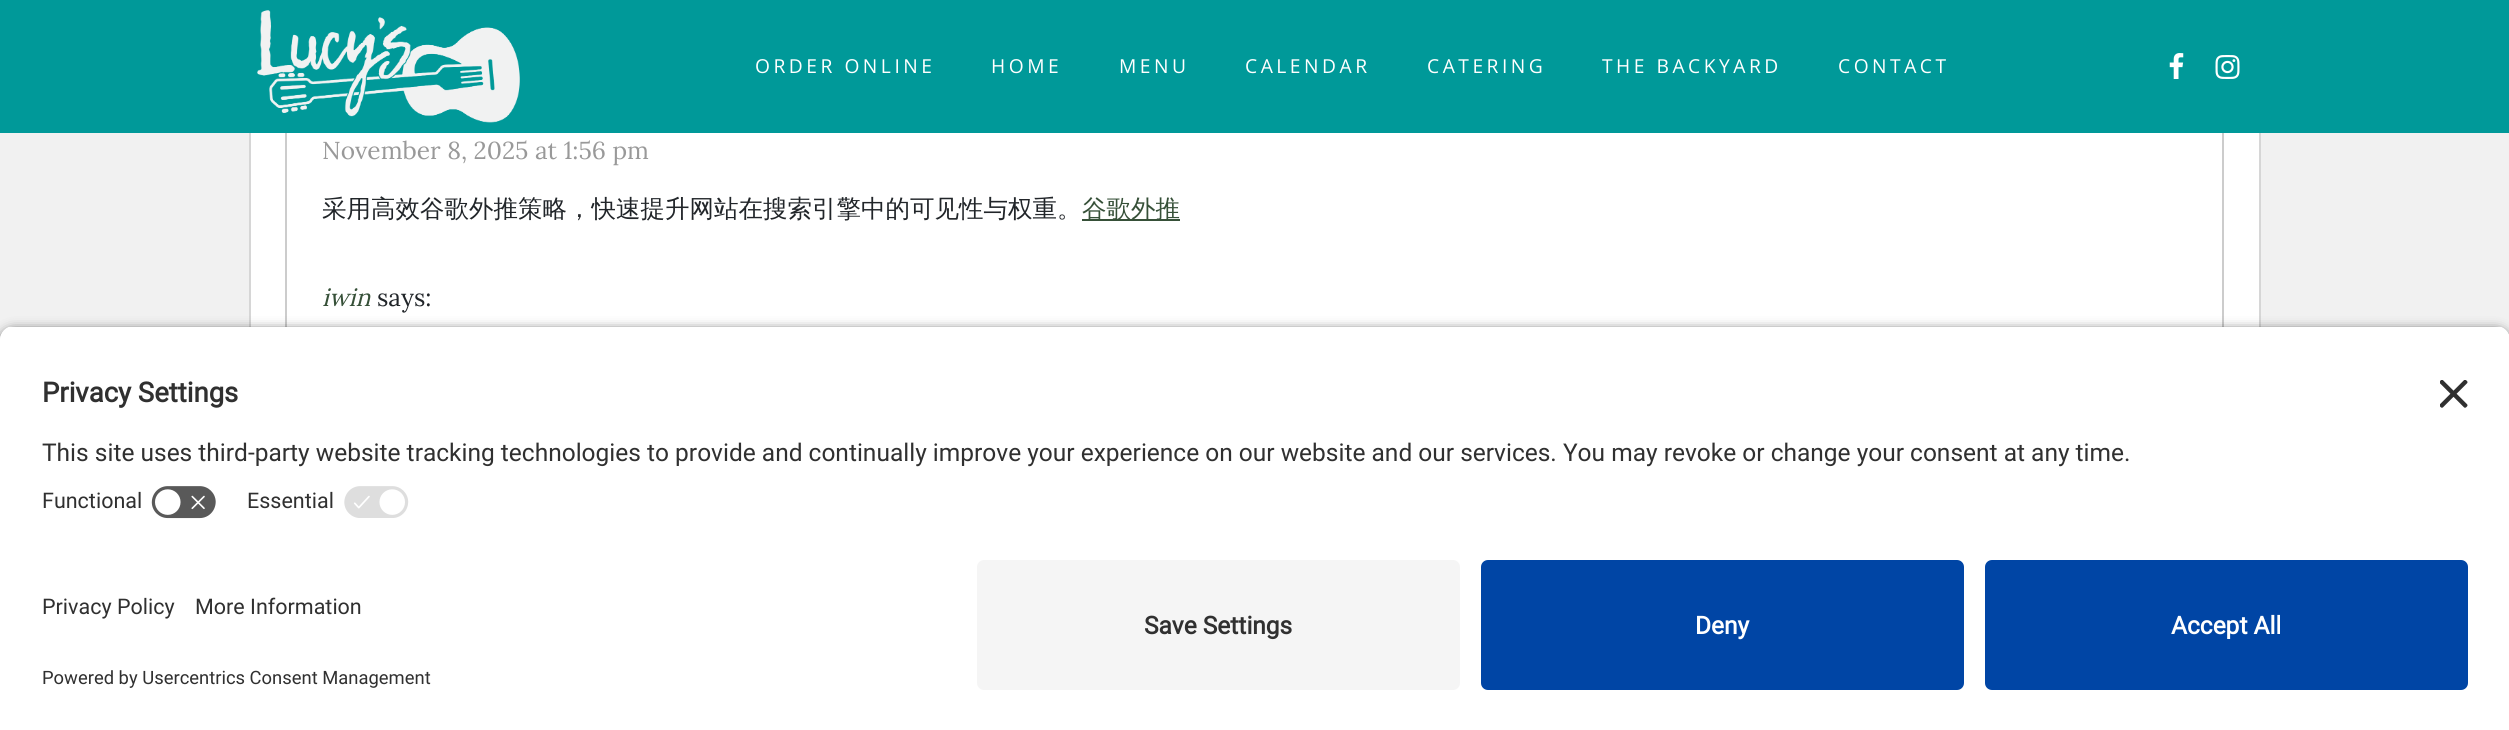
import math
import cairo


def use_color(cr, r, g, b):
  cr.set_source_rgb(r / 255, g / 255, b / 255)

def text(cr, x, y, s, family, size, color, bold=False, italic=False):
  cr.select_font_face(family, cairo.FONT_SLANT_ITALIC if italic else cairo.FONT_SLANT_NORMAL, cairo.FONT_WEIGHT_BOLD if bold else cairo.FONT_WEIGHT_NORMAL)
  cr.set_font_size(size)
  use_color(cr, *color)
  cr.move_to(x, y)
  cr.show_text(s)

def spaced_text(cr, x, y, s, letter, word):
  cr.move_to(x, y)
  for ch in s:
    cr.show_text(ch)
    cr.rel_move_to(letter + word * (ch == ' '), 0)

def box(cr, x, y, w, h, *color):
  use_color(cr, *color)
  cr.rectangle(x, y, w, h)
  cr.fill()

def round_rect(cr, x, y, w, h, r):
  cr.new_sub_path()
  for i, (u, v) in enumerate([(x + w - r, y + h - r), (x + r, y + h - r), (x + r, y + r), (x + w - r, y + r)]):
    cr.arc(u, v, r, i * math.pi / 2, (i + 1) * math.pi / 2)
  cr.close_path()

def shadow(cr, x, y, w, h, r, blur, alpha):
  cr.push_group_with_content(cairo.CONTENT_ALPHA)
  cr.set_operator(cairo.OPERATOR_SOURCE)
  for i in range(15, -16, -2):
    e = blur * i / 6
    if min(w, h) + 2 * e > 0:
      cr.set_source_rgba(0, 0, 0, alpha * math.erfc((i - 1) / 8.5) / 2)
      round_rect(cr, x - e, y - e, w + 2 * e, h + 2 * e, max(0, min(r + e + blur * .6, min(w, h) / 2 + e)))
      cr.fill()
  cr.mask(cr.pop_group())

def picture(cr, path, x, y, w, h):
  cr.save()
  cr.set_source_surface(cairo.ImageSurface.create_from_png(path), x, y)
  cr.rectangle(x, y, w, h)
  cr.fill()
  cr.restore()

def draw(cr):
  use_color(cr, 241, 241, 241)
  cr.paint()
  box(cr, 251, 133, 2008, 194, 255, 255, 255)
  cr.rectangle(250, -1, 2010, 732)
  use_color(cr, 214, 214, 214)
  cr.stroke()
  cr.rectangle(286, -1, 1937, 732)
  use_color(cr, 204, 204, 204)
  cr.stroke()
  box(cr, 0, 0, 2509, 133, 0, 153, 153)
  picture(cr, "img_01.png", 257, 10, 263, 113)
  picture(cr, "img_02.png", 2169, 53, 15, 26)
  picture(cr, "img_03.png", 2215, 55, 25, 24)
  box(cr, 1082, 219, 98, 2, 54, 80, 56)
  use_color(cr, 0, 0, 0)
  shadow(cr, 0, 331, 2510, 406, 14, 6, 0.8)
  cr.save()
  cr.new_path()
  cr.move_to(14, 326)
  cr.line_to(2496, 326)
  cr.curve_to(2503.5, 326, 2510, 332.5, 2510, 340)
  cr.line_to(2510, 546)
  cr.line_to(0, 546)
  cr.line_to(0, 340)
  cr.curve_to(0, 332.5, 6.5, 326, 14, 326)
  cr.close_path()
  cr.clip()
  box(cr, 0, 327, 2509, 219, 255, 255, 255)
  box(cr, 0, 327, 2509, 149, 255, 255, 255)
  cr.restore()
  picture(cr, "img_04.png", 2440, 380, 28, 28)
  picture(cr, "img_05.png", 151, 486, 65, 33)
  picture(cr, "img_06.png", 344, 486, 65, 32)
  box(cr, 0, 546, 2509, 184, 255, 255, 255)
  use_color(cr, 245, 245, 245)
  round_rect(cr, 977, 560, 483, 130, 7)
  cr.fill()
  use_color(cr, 0, 69, 165)
  round_rect(cr, 1481, 560, 483, 130, 7)
  cr.fill()
  round_rect(cr, 1985, 560, 483, 130, 7)
  cr.fill()
  cr.select_font_face("Open Sans")
  cr.set_font_size(19.25)
  use_color(cr, 255, 255, 255)
  spaced_text(cr, 755, 73, "ORDER ONLINE", 3.5, 0)
  spaced_text(cr, 991, 73, "HOME", 3.5, 0)
  spaced_text(cr, 1119, 73, "MENU", 3.5, 0)
  spaced_text(cr, 1245, 73, "CALENDAR", 3.5, 0)
  spaced_text(cr, 1427, 73, "CATERING", 3.5, 0)
  spaced_text(cr, 1602, 73, "THE BACKYARD", 3.5, 0)
  spaced_text(cr, 1838, 73, "CONTACT", 3.5, 0)
  text(cr, 322, 159, "November 8, 2025 at 1:56 pm", "Lora", 24.5, (153, 153, 153))
  text(cr, 322, 217, "采用高效谷歌外推策略，快速提升网站在搜索引擎中的可见性与权重。", "WenQuanYi Zen Hei Medium", 24.5, (33, 37, 41))
  text(cr, 1082, 217, "谷歌外推", "WenQuanYi Zen Hei Medium", 24.5, (54, 80, 56))
  text(cr, 322, 306, "iwin", "Lora", 24.5, (54, 80, 56), italic=True)
  text(cr, 377, 306, "says:", "Lora", 24.5, (33, 37, 41))
  text(cr, 42, 402, "Privacy Settings", "Roboto", 27.5, (48, 48, 48), bold=True)
  text(cr, 42, 461, "This site uses third-party website tracking technologies to provide and continually improve your experience on our website and our services. You may revoke or change your consent at any time.", "Roboto", 24.5, (48, 48, 48))
  text(cr, 42, 508, "Functional", "Roboto", 21.5, (48, 48, 48))
  text(cr, 247, 508, "Essential", "Roboto", 21.5, (48, 48, 48))
  text(cr, 42, 614, "Privacy Policy", "Roboto", 21.5, (48, 48, 48))
  text(cr, 195, 614, "More Information", "Roboto", 21.5, (48, 48, 48))
  text(cr, 42, 684, "Powered by Usercentrics Consent Management", "Roboto", 18.4, (48, 48, 48))
  text(cr, 1144, 634, "Save Settings", "Roboto", 24.5, (48, 48, 48), bold=True)
  text(cr, 1695, 634, "Deny", "Roboto", 24.5, (255, 255, 255), bold=True)
  text(cr, 2171, 634, "Accept All", "Roboto", 24.5, (255, 255, 255), bold=True)


surface = cairo.ImageSurface(cairo.FORMAT_RGB24, 2509, 730)
cr = cairo.Context(surface)
options = cairo.FontOptions()
options.set_hint_metrics(cairo.HINT_METRICS_OFF)
options.set_hint_style(cairo.HINT_STYLE_NONE)
cr.set_font_options(options)
cr.set_miter_limit(4)
draw(cr)
surface.write_to_png("out.png")
